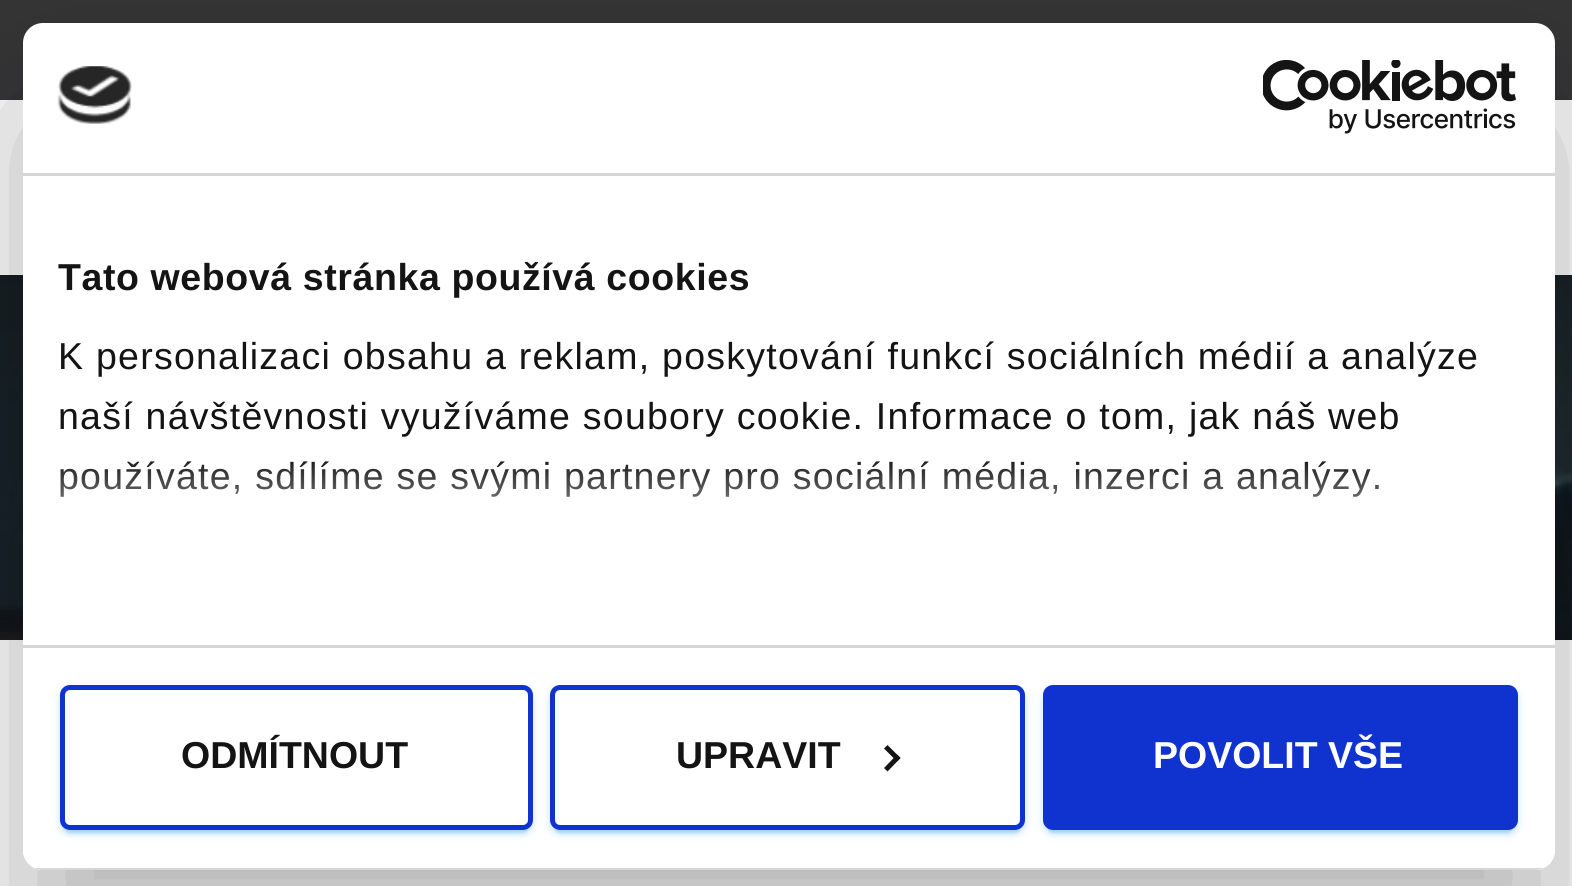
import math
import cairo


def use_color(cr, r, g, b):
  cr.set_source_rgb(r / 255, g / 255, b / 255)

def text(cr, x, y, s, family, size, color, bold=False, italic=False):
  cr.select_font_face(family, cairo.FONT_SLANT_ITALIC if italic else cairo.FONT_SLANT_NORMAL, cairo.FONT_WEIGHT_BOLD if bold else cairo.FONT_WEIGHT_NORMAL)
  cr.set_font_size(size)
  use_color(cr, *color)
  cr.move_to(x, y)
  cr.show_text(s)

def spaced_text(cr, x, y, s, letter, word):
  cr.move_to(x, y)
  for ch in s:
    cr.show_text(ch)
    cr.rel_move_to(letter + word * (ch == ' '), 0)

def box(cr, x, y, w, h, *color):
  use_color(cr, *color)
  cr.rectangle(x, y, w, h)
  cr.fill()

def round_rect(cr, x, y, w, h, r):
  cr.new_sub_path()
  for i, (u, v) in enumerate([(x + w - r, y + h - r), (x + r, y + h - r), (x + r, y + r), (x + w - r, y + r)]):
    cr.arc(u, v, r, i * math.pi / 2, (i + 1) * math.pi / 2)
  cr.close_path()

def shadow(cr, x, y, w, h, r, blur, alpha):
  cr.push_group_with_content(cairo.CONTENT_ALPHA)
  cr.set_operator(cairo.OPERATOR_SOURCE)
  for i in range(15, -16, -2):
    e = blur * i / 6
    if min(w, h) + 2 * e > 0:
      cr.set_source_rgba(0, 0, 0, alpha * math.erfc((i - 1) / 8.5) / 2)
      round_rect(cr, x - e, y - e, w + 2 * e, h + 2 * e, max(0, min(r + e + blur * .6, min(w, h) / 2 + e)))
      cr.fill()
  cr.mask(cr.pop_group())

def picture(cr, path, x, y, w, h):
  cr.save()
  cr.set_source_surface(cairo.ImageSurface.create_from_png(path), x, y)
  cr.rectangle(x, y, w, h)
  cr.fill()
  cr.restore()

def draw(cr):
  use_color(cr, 54, 53, 55)
  cr.paint()
  picture(cr, "img_01.png", 0, 275, 1572, 365)
  use_color(cr, 0, 0, 0)
  shadow(cr, 15, 118, 1543, 145, 0, 12.5, 0.42)
  box(cr, 0, 100, 1572, 175, 255, 255, 255)
  box(cr, 0, 640, 1572, 246, 255, 255, 255)
  cr.save()
  cr.set_fill_rule(cairo.FILL_RULE_EVEN_ODD)
  cr.new_path()
  cr.move_to(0, 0)
  cr.line_to(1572, 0)
  cr.line_to(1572, 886)
  cr.line_to(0, 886)
  cr.close_path()
  cr.move_to(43, 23)
  cr.line_to(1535, 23)
  cr.curve_to(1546, 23, 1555, 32, 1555, 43)
  cr.line_to(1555, 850)
  cr.curve_to(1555, 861, 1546, 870, 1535, 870)
  cr.line_to(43, 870)
  cr.curve_to(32, 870, 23, 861, 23, 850)
  cr.line_to(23, 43)
  cr.curve_to(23, 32, 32, 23, 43, 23)
  cr.close_path()
  cr.clip()
  use_color(cr, 0, 0, 0)
  shadow(cr, 23, 103, 1532, 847, 20, 85, 0.3)
  cr.restore()
  round_rect(cr, 23, 23, 1532, 847, 20)
  cr.fill()
  box(cr, 23, 173, 1532, 3, 214, 214, 214)
  picture(cr, "img_02.png", 57, 66, 75, 58)
  picture(cr, "img_03.png", 1263, 60, 253, 74)
  box(cr, 23, 645, 1532, 3, 214, 214, 214)
  cr.save()
  round_rect(cr, 23, 23, 1532, 847, 20)
  cr.clip()
  box(cr, 34, 868, 1510, 2, 214, 214, 214)
  cr.restore()
  cr.save()
  cr.set_fill_rule(cairo.FILL_RULE_EVEN_ODD)
  cr.new_path()
  cr.move_to(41, 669)
  cr.line_to(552, 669)
  cr.line_to(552, 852)
  cr.line_to(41, 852)
  cr.close_path()
  cr.move_to(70, 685)
  cr.line_to(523, 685)
  cr.curve_to(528.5, 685, 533, 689.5, 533, 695)
  cr.line_to(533, 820)
  cr.curve_to(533, 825.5, 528.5, 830, 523, 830)
  cr.line_to(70, 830)
  cr.curve_to(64.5, 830, 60, 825.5, 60, 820)
  cr.line_to(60, 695)
  cr.curve_to(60, 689.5, 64.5, 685, 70, 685)
  cr.close_path()
  cr.clip()
  use_color(cr, 18, 146, 236)
  shadow(cr, 60, 688, 473, 145, 10, 6, 0.12)
  cr.restore()
  cr.save()
  cr.set_fill_rule(cairo.FILL_RULE_EVEN_ODD)
  cr.new_path()
  cr.move_to(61, 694)
  cr.line_to(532, 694)
  cr.line_to(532, 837)
  cr.line_to(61, 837)
  cr.close_path()
  cr.move_to(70, 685)
  cr.line_to(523, 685)
  cr.curve_to(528.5, 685, 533, 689.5, 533, 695)
  cr.line_to(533, 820)
  cr.curve_to(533, 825.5, 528.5, 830, 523, 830)
  cr.line_to(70, 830)
  cr.curve_to(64.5, 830, 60, 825.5, 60, 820)
  cr.line_to(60, 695)
  cr.curve_to(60, 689.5, 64.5, 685, 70, 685)
  cr.close_path()
  cr.clip()
  use_color(cr, 18, 146, 236)
  shadow(cr, 65, 698, 463, 135, 5, 1, 0.2)
  cr.restore()
  cr.save()
  cr.set_fill_rule(cairo.FILL_RULE_EVEN_ODD)
  cr.new_path()
  cr.move_to(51, 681)
  cr.line_to(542, 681)
  cr.line_to(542, 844)
  cr.line_to(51, 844)
  cr.close_path()
  cr.move_to(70, 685)
  cr.line_to(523, 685)
  cr.curve_to(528.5, 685, 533, 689.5, 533, 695)
  cr.line_to(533, 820)
  cr.curve_to(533, 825.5, 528.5, 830, 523, 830)
  cr.line_to(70, 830)
  cr.curve_to(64.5, 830, 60, 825.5, 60, 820)
  cr.line_to(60, 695)
  cr.curve_to(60, 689.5, 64.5, 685, 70, 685)
  cr.close_path()
  cr.clip()
  use_color(cr, 18, 146, 236)
  shadow(cr, 60, 690, 473, 145, 10, 2.5, 0.14)
  cr.restore()
  round_rect(cr, 62.5, 687.5, 468, 140, 7.5)
  use_color(cr, 16, 50, 207)
  cr.set_line_width(5)
  cr.stroke()
  cr.save()
  cr.set_fill_rule(cairo.FILL_RULE_EVEN_ODD)
  cr.new_path()
  cr.move_to(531, 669)
  cr.line_to(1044, 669)
  cr.line_to(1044, 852)
  cr.line_to(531, 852)
  cr.close_path()
  cr.move_to(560, 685)
  cr.line_to(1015, 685)
  cr.curve_to(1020.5, 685, 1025, 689.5, 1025, 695)
  cr.line_to(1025, 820)
  cr.curve_to(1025, 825.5, 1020.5, 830, 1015, 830)
  cr.line_to(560, 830)
  cr.curve_to(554.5, 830, 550, 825.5, 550, 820)
  cr.line_to(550, 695)
  cr.curve_to(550, 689.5, 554.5, 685, 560, 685)
  cr.close_path()
  cr.clip()
  use_color(cr, 18, 146, 236)
  shadow(cr, 550, 688, 475, 145, 10, 6, 0.12)
  cr.restore()
  cr.save()
  cr.set_fill_rule(cairo.FILL_RULE_EVEN_ODD)
  cr.new_path()
  cr.move_to(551, 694)
  cr.line_to(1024, 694)
  cr.line_to(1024, 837)
  cr.line_to(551, 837)
  cr.close_path()
  cr.move_to(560, 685)
  cr.line_to(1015, 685)
  cr.curve_to(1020.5, 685, 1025, 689.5, 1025, 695)
  cr.line_to(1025, 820)
  cr.curve_to(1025, 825.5, 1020.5, 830, 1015, 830)
  cr.line_to(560, 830)
  cr.curve_to(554.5, 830, 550, 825.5, 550, 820)
  cr.line_to(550, 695)
  cr.curve_to(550, 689.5, 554.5, 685, 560, 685)
  cr.close_path()
  cr.clip()
  use_color(cr, 18, 146, 236)
  shadow(cr, 555, 698, 465, 135, 5, 1, 0.2)
  cr.restore()
  cr.save()
  cr.set_fill_rule(cairo.FILL_RULE_EVEN_ODD)
  cr.new_path()
  cr.move_to(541, 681)
  cr.line_to(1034, 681)
  cr.line_to(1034, 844)
  cr.line_to(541, 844)
  cr.close_path()
  cr.move_to(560, 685)
  cr.line_to(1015, 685)
  cr.curve_to(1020.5, 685, 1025, 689.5, 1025, 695)
  cr.line_to(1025, 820)
  cr.curve_to(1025, 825.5, 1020.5, 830, 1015, 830)
  cr.line_to(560, 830)
  cr.curve_to(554.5, 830, 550, 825.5, 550, 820)
  cr.line_to(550, 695)
  cr.curve_to(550, 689.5, 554.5, 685, 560, 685)
  cr.close_path()
  cr.clip()
  use_color(cr, 18, 146, 236)
  shadow(cr, 550, 690, 475, 145, 10, 2.5, 0.14)
  cr.restore()
  round_rect(cr, 552.5, 687.5, 470, 140, 7.5)
  cr.stroke()
  use_color(cr, 20, 20, 20)
  cr.new_path()
  cr.move_to(887.5, 745)
  cr.line_to(900.5, 758)
  cr.line_to(897, 761.5)
  cr.line_to(884, 748.5)
  cr.close_path()
  cr.fill()
  cr.new_path()
  cr.move_to(897, 754.5)
  cr.line_to(900.5, 758)
  cr.line_to(887.5, 771.5)
  cr.line_to(884, 768)
  cr.close_path()
  cr.fill()
  cr.save()
  cr.set_fill_rule(cairo.FILL_RULE_EVEN_ODD)
  cr.new_path()
  cr.move_to(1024, 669)
  cr.line_to(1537, 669)
  cr.line_to(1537, 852)
  cr.line_to(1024, 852)
  cr.close_path()
  cr.move_to(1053, 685)
  cr.line_to(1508, 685)
  cr.curve_to(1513.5, 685, 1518, 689.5, 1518, 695)
  cr.line_to(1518, 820)
  cr.curve_to(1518, 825.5, 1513.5, 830, 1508, 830)
  cr.line_to(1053, 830)
  cr.curve_to(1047.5, 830, 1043, 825.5, 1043, 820)
  cr.line_to(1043, 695)
  cr.curve_to(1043, 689.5, 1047.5, 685, 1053, 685)
  cr.close_path()
  cr.clip()
  use_color(cr, 18, 146, 236)
  shadow(cr, 1043, 688, 475, 145, 10, 6, 0.12)
  cr.restore()
  use_color(cr, 18, 146, 236)
  shadow(cr, 1048, 698, 465, 135, 5, 1, 0.2)
  shadow(cr, 1043, 690, 475, 145, 10, 2.5, 0.14)
  use_color(cr, 16, 50, 207)
  round_rect(cr, 1045.5, 687.5, 470, 140, 7.5)
  cr.fill_preserve()
  cr.stroke()
  cr.select_font_face("Liberation Sans", cairo.FONT_SLANT_NORMAL, cairo.FONT_WEIGHT_BOLD)
  cr.set_font_size(37.5)
  use_color(cr, 20, 20, 20)
  spaced_text(cr, 58, 290, "Tato webová stránka používá cookies", 0.6, 0)
  cr.select_font_face("Liberation Sans")
  spaced_text(cr, 58, 369, "K personalizaci obsahu a reklam, poskytování funkcí sociálních médií a analýze", 1.25, 0)
  spaced_text(cr, 58, 429, "naší návštěvnosti využíváme soubory cookie. Informace o tom, jak náš web", 1.25, 0)
  spaced_text(cr, 58, 489, "používáte, sdílíme se svými partnery pro sociální média, inzerci a analýzy.", 1.25, 0)
  gradient = cairo.LinearGradient(771, 644, 771, 456)
  gradient.add_color_stop_rgba(0, 1, 1, 1, 1)
  gradient.add_color_stop_rgba(0.5, 1, 1, 1, 0.8)
  gradient.add_color_stop_rgba(1, 1, 1, 1, 0)
  cr.set_source(gradient)
  cr.rectangle(60, 461, 1319, 36)
  cr.fill()
  text(cr, 181, 768, "ODMÍTNOUT", "Liberation Sans", 37.5, (20, 20, 20), bold=True)
  text(cr, 676, 768, "UPRAVIT", "Liberation Sans", 37.5, (20, 20, 20), bold=True)
  text(cr, 1153, 768, "POVOLIT VŠE", "Liberation Sans", 37.5, (255, 255, 255), bold=True)


surface = cairo.ImageSurface(cairo.FORMAT_RGB24, 1572, 886)
cr = cairo.Context(surface)
options = cairo.FontOptions()
options.set_hint_metrics(cairo.HINT_METRICS_OFF)
options.set_hint_style(cairo.HINT_STYLE_NONE)
cr.set_font_options(options)
cr.set_miter_limit(4)
draw(cr)
surface.write_to_png("out.png")
